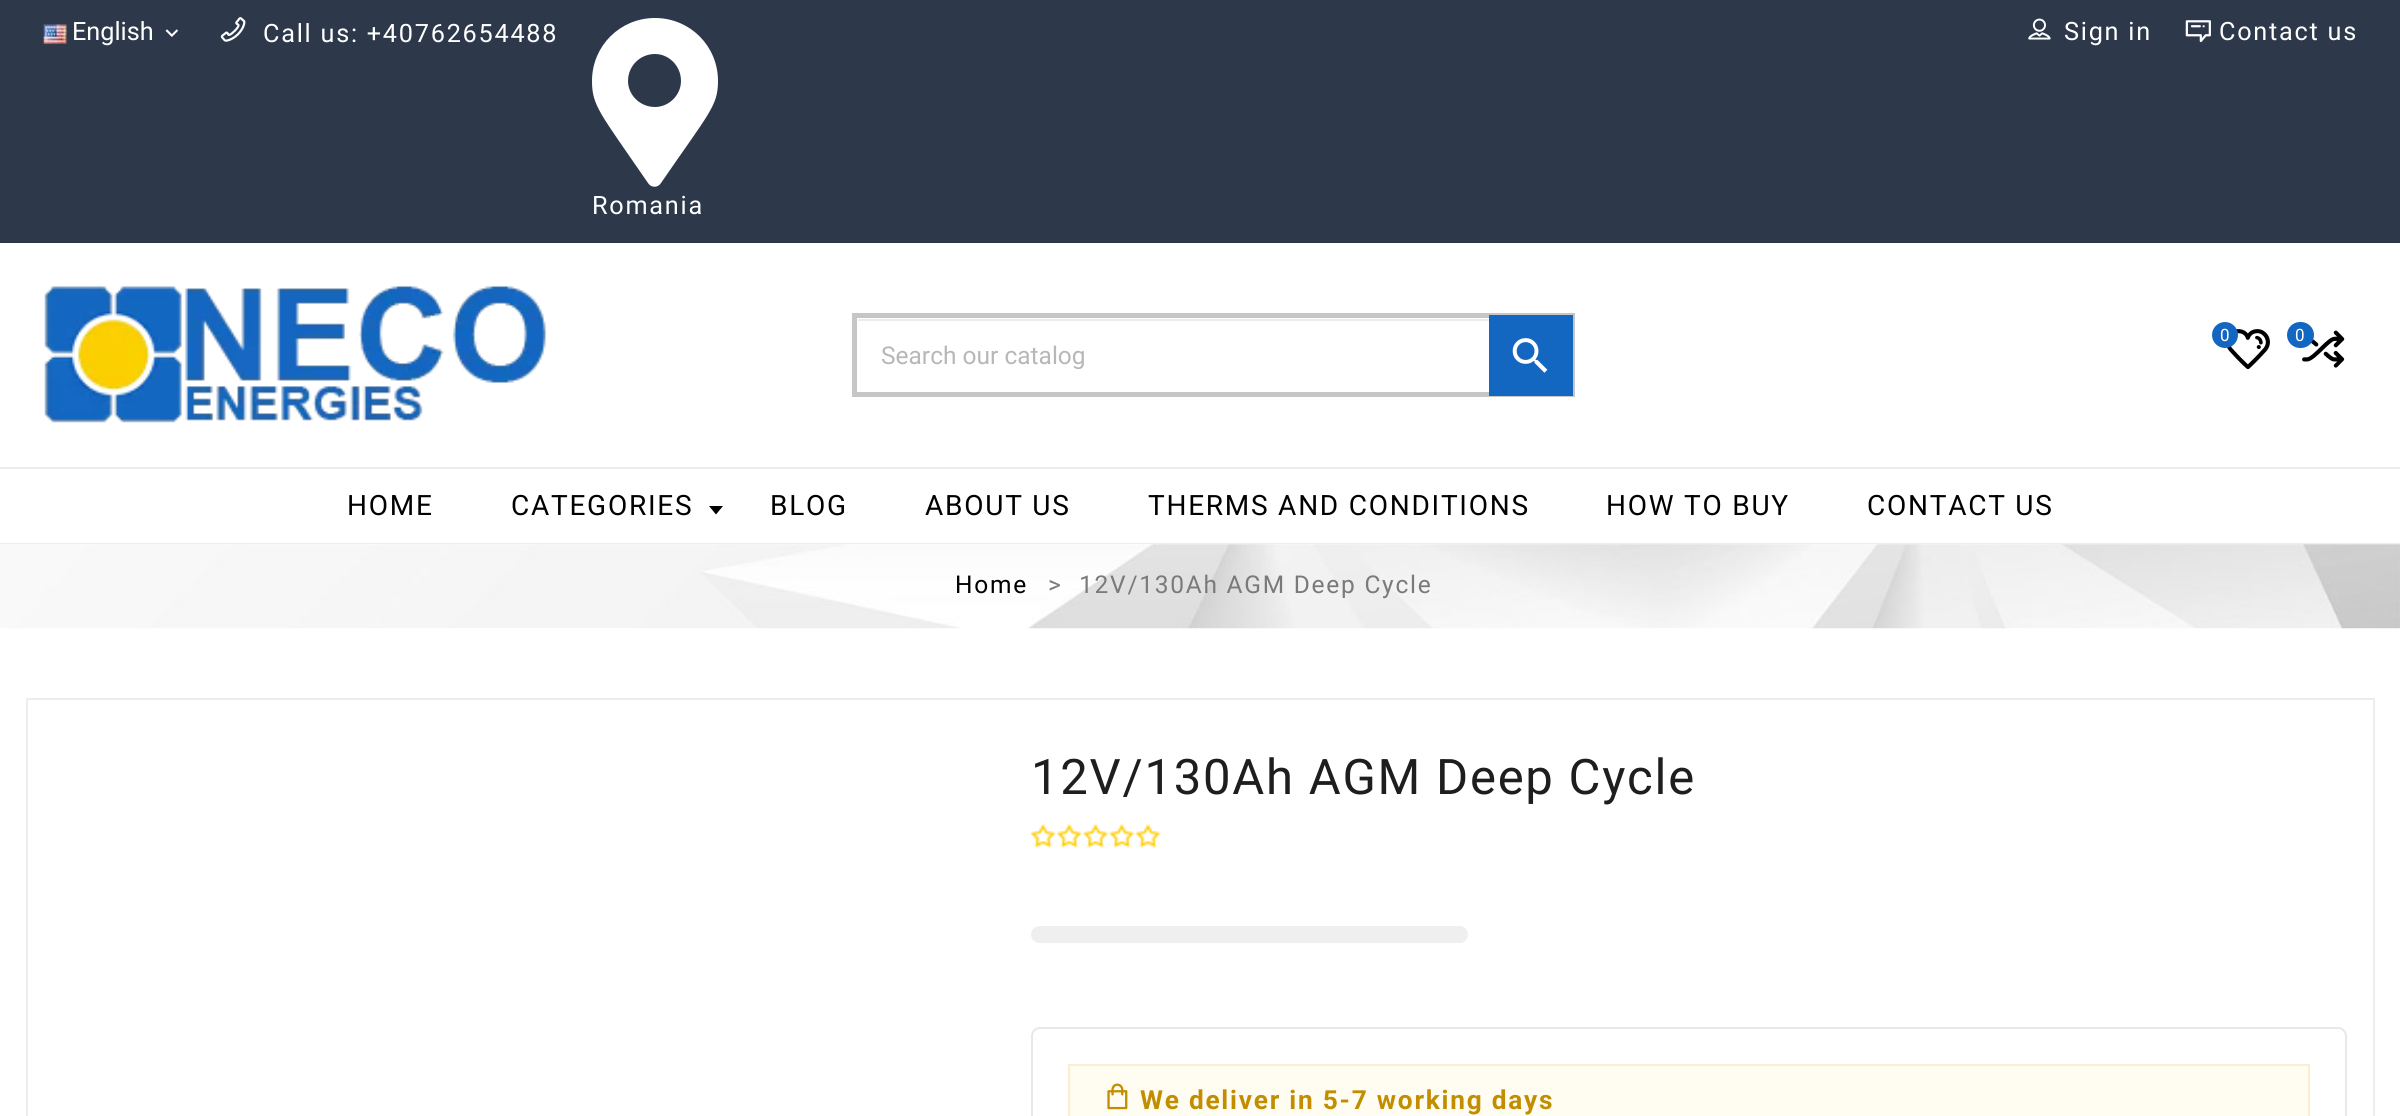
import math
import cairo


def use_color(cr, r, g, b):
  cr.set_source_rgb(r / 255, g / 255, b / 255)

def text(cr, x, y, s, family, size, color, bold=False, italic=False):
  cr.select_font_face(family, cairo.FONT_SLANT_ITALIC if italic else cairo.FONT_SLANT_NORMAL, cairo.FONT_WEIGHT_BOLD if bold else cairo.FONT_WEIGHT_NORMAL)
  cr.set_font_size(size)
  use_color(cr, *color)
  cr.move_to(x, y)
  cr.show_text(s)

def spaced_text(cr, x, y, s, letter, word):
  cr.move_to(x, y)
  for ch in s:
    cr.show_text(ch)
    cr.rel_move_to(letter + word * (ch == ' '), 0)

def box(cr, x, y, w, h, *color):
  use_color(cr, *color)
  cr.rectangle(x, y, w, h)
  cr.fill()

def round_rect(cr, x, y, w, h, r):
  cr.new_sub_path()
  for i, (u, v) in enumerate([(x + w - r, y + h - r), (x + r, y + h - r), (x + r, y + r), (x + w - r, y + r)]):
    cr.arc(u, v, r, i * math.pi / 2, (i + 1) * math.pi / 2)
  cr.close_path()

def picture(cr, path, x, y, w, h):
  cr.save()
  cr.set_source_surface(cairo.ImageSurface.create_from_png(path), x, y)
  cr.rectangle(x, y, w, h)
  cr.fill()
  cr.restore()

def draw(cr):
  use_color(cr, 255, 255, 255)
  cr.paint()
  box(cr, 0, 0, 2400, 243, 45, 57, 75)
  cr.set_source_rgba(0, 0, 0, 0.1)
  cr.rectangle(0, 242, 2400, 1)
  cr.fill()
  picture(cr, "img_01.png", 43, 24, 24, 20)
  picture(cr, "img_02.png", 165, 29, 14, 8)
  picture(cr, "img_03.png", 220, 17, 26, 25)
  use_color(cr, 255, 255, 255)
  cr.new_path()
  cr.move_to(648, 183)
  cr.curve_to(600, 113, 592, 106, 592, 81)
  cr.curve_to(592, 46, 620, 18, 655, 18)
  cr.curve_to(690, 18, 718, 46, 718, 81)
  cr.curve_to(718, 106, 709, 113, 661, 183)
  cr.curve_to(658, 188, 651, 188, 648, 183)
  cr.close_path()
  cr.move_to(655, 107)
  cr.curve_to(669, 107, 681, 95, 681, 81)
  cr.curve_to(681, 66, 669, 54, 655, 54)
  cr.curve_to(640, 54, 628, 66, 628, 81)
  cr.curve_to(628, 95, 640, 107, 655, 107)
  cr.close_path()
  cr.fill()
  picture(cr, "img_04.png", 2028, 18, 23, 22)
  picture(cr, "img_05.png", 2185, 20, 26, 23)
  picture(cr, "img_06.png", 44, 286, 502, 137)
  picture(cr, "img_07.png", 2226, 329, 44, 40)
  use_color(cr, 20, 103, 193)
  cr.arc(2225, 335, 13, 0, 2 * math.pi)
  cr.fill()
  picture(cr, "img_08.png", 2302, 330, 43, 38)
  round_rect(cr, 2287, 322, 27, 26, 13)
  cr.fill()
  box(cr, 858, 319, 631, 2, 236, 236, 236)
  cr.rectangle(854.5, 315.5, 718, 79)
  use_color(cr, 198, 198, 198)
  cr.set_line_width(5)
  cr.stroke()
  box(cr, 1489, 315, 84, 81, 20, 103, 193)
  picture(cr, "img_09.png", 1512, 338, 36, 35)
  box(cr, 0, 467, 2400, 2, 237, 237, 237)
  box(cr, 0, 543, 2400, 1, 237, 237, 237)
  use_color(cr, 0, 0, 0)
  cr.new_path()
  cr.move_to(709, 506)
  cr.line_to(723, 506)
  cr.line_to(716, 514.5)
  cr.close_path()
  cr.fill()
  picture(cr, "img_10.png", 0, 544, 2400, 85)
  cr.rectangle(27, 699, 2347, 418)
  use_color(cr, 237, 237, 237)
  cr.set_line_width(2)
  cr.stroke()
  picture(cr, "img_11.png", 1030, 824, 26, 24)
  picture(cr, "img_12.png", 1057, 824, 25, 24)
  picture(cr, "img_13.png", 1083, 824, 26, 24)
  picture(cr, "img_14.png", 1109, 824, 26, 24)
  picture(cr, "img_11.png", 1135, 824, 26, 24)
  use_color(cr, 239, 239, 239)
  round_rect(cr, 1031, 926, 437, 17, 8.5)
  cr.fill()
  round_rect(cr, 1032, 1028, 1314, 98, 8)
  use_color(cr, 229, 232, 236)
  cr.stroke()
  use_color(cr, 255, 252, 242)
  cr.rectangle(1069, 1065, 1240, 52)
  cr.fill_preserve()
  use_color(cr, 250, 238, 207)
  cr.stroke()
  picture(cr, "img_15.png", 1107, 1083, 21, 27)
  text(cr, 72, 40, "English", "Roboto", 25.25, (255, 255, 255))
  spaced_text(cr, 263, 42, "Call us: +40762654488", 1.75, 0)
  spaced_text(cr, 592, 214, "Romania", 1.75, 0)
  spaced_text(cr, 2064, 40, "Sign in", 1.75, 0)
  spaced_text(cr, 2219, 40, "Contact us", 1.75, 0)
  cr.set_font_size(17)
  spaced_text(cr, 2220, 341, "0", 1.75, 0)
  spaced_text(cr, 2295, 341, "0", 1.75, 0)
  text(cr, 881, 364, "Search our catalog", "Roboto", 24.5, (183, 183, 183))
  cr.set_font_size(28)
  use_color(cr, 0, 0, 0)
  spaced_text(cr, 347, 515, "HOME", 1.75, 0)
  spaced_text(cr, 511, 515, "CATEGORIES", 1.75, 0)
  spaced_text(cr, 770, 515, "BLOG", 1.75, 0)
  spaced_text(cr, 925, 515, "ABOUT US", 1.75, 0)
  spaced_text(cr, 1148, 515, "THERMS AND CONDITIONS", 1.75, 0)
  spaced_text(cr, 1606, 515, "HOW TO BUY", 1.75, 0)
  spaced_text(cr, 1867, 515, "CONTACT US", 1.75, 0)
  cr.set_font_size(24.5)
  spaced_text(cr, 955, 593, "Home", 1.75, 0)
  use_color(cr, 122, 122, 122)
  spaced_text(cr, 1048, 593, ">", 1.75, 0)
  spaced_text(cr, 1079, 593, "12V/130Ah AGM Deep Cycle", 1.75, 0)
  cr.set_font_size(49)
  use_color(cr, 30, 30, 30)
  spaced_text(cr, 1031, 794, "12V/130Ah AGM Deep Cycle", 1.75, 0)
  cr.select_font_face("Roboto", cairo.FONT_SLANT_NORMAL, cairo.FONT_WEIGHT_BOLD)
  cr.set_font_size(26.25)
  use_color(cr, 194, 142, 0)
  spaced_text(cr, 1140, 1109, "We deliver in 5-7 working days", 1.75, 0)


surface = cairo.ImageSurface(cairo.FORMAT_RGB24, 2400, 1116)
cr = cairo.Context(surface)
options = cairo.FontOptions()
options.set_hint_metrics(cairo.HINT_METRICS_OFF)
options.set_hint_style(cairo.HINT_STYLE_NONE)
cr.set_font_options(options)
cr.set_miter_limit(4)
draw(cr)
surface.write_to_png("out.png")
